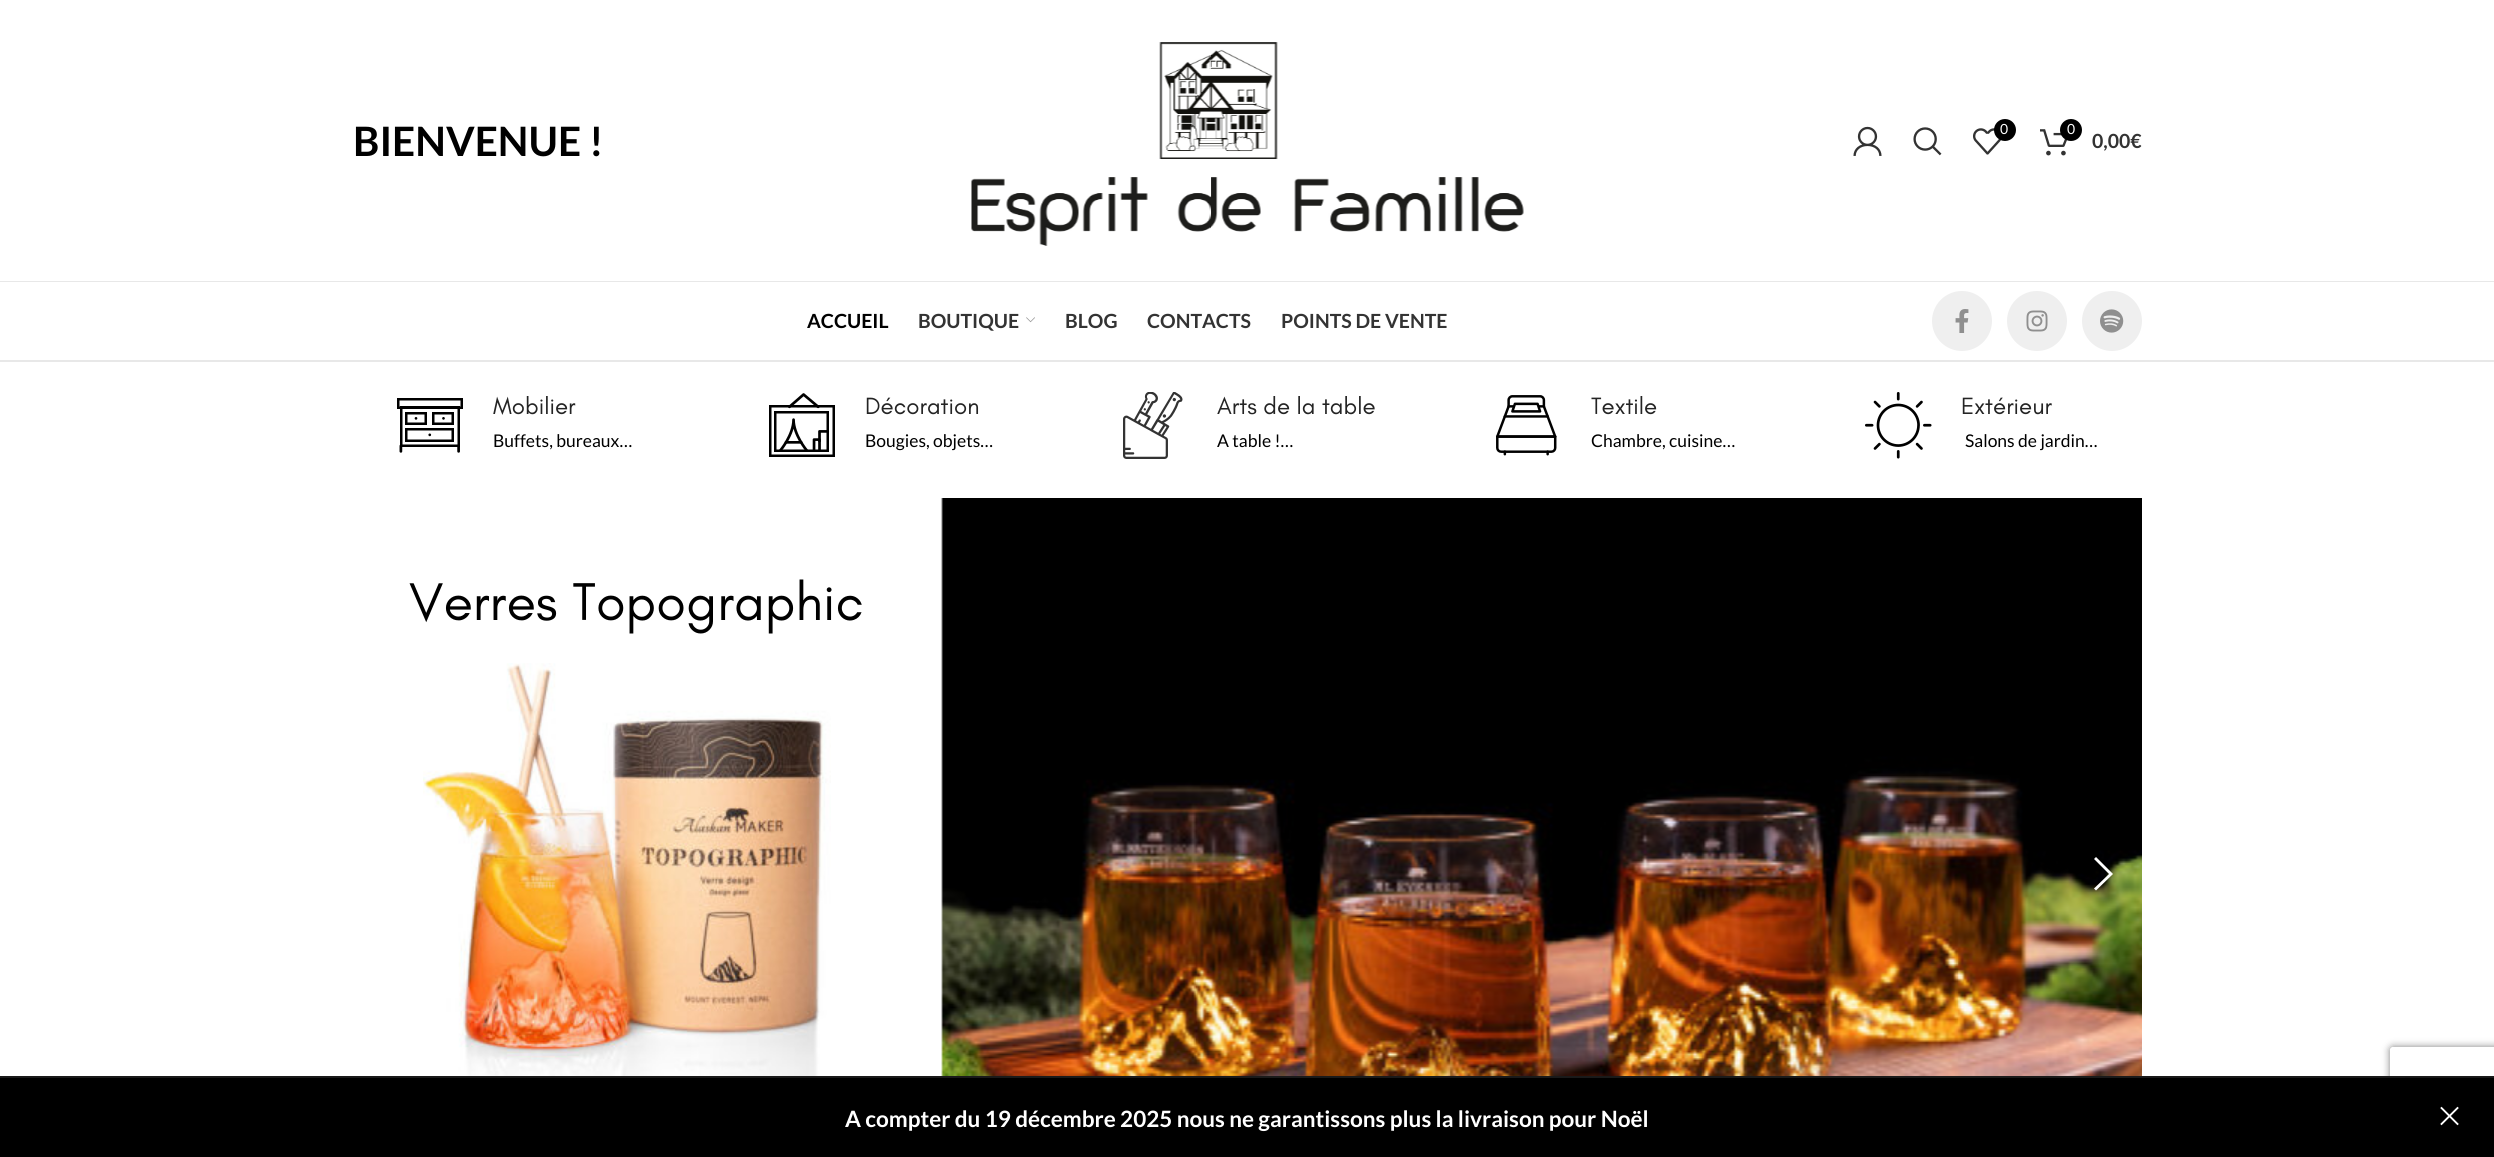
import math
import cairo


def use_color(cr, r, g, b):
  cr.set_source_rgb(r / 255, g / 255, b / 255)

def text(cr, x, y, s, family, size, color, bold=False, italic=False):
  cr.select_font_face(family, cairo.FONT_SLANT_ITALIC if italic else cairo.FONT_SLANT_NORMAL, cairo.FONT_WEIGHT_BOLD if bold else cairo.FONT_WEIGHT_NORMAL)
  cr.set_font_size(size)
  use_color(cr, *color)
  cr.move_to(x, y)
  cr.show_text(s)

def box(cr, x, y, w, h, *color):
  use_color(cr, *color)
  cr.rectangle(x, y, w, h)
  cr.fill()

def round_rect(cr, x, y, w, h, r):
  cr.new_sub_path()
  for i, (u, v) in enumerate([(x + w - r, y + h - r), (x + r, y + h - r), (x + r, y + r), (x + w - r, y + r)]):
    cr.arc(u, v, r, i * math.pi / 2, (i + 1) * math.pi / 2)
  cr.close_path()

def shadow(cr, x, y, w, h, r, blur, alpha):
  cr.push_group_with_content(cairo.CONTENT_ALPHA)
  cr.set_operator(cairo.OPERATOR_SOURCE)
  for i in range(15, -16, -2):
    e = blur * i / 6
    if min(w, h) + 2 * e > 0:
      cr.set_source_rgba(0, 0, 0, alpha * math.erfc((i - 1) / 8.5) / 2)
      round_rect(cr, x - e, y - e, w + 2 * e, h + 2 * e, max(0, min(r + e + blur * .6, min(w, h) / 2 + e)))
      cr.fill()
  cr.mask(cr.pop_group())

def picture(cr, path, x, y, w, h):
  cr.save()
  cr.set_source_surface(cairo.ImageSurface.create_from_png(path), x, y)
  cr.rectangle(x, y, w, h)
  cr.fill()
  cr.restore()

def draw(cr):
  use_color(cr, 255, 255, 255)
  cr.paint()
  box(cr, 0, 281, 2494, 1, 232, 232, 232)
  picture(cr, "img_01.png", 971, 42, 553, 204)
  picture(cr, "img_02.png", 1853, 126, 29, 30)
  picture(cr, "img_03.png", 1913, 127, 29, 29)
  picture(cr, "img_04.png", 1973, 128, 28, 27)
  use_color(cr, 0, 0, 0)
  cr.arc(2005, 130, 11, 0, 2 * math.pi)
  cr.fill()
  picture(cr, "img_05.png", 2040, 129, 27, 27)
  cr.arc(2071, 130, 11, 0, 2 * math.pi)
  cr.fill()
  box(cr, 0, 360, 2494, 2, 232, 232, 232)
  picture(cr, "img_06.png", 1026, 317, 9, 6)
  use_color(cr, 239, 239, 239)
  cr.arc(1962, 321, 30, 0, 2 * math.pi)
  cr.fill()
  picture(cr, "img_07.png", 1955, 309, 14, 24)
  cr.arc(2037, 321, 30, 0, 2 * math.pi)
  cr.fill()
  picture(cr, "img_08.png", 2026, 310, 22, 22)
  cr.arc(2112, 321, 30, 0, 2 * math.pi)
  cr.fill()
  picture(cr, "img_09.png", 2100, 309, 24, 24)
  picture(cr, "img_10.png", 397, 398, 66, 55)
  picture(cr, "img_11.png", 769, 393, 66, 64)
  picture(cr, "img_12.png", 1123, 392, 60, 67)
  picture(cr, "img_13.png", 1496, 395, 61, 61)
  picture(cr, "img_14.png", 1865, 392, 67, 67)
  picture(cr, "img_15.png", 423, 663, 408, 413)
  picture(cr, "img_16.png", 941, 498, 1201, 578)
  use_color(cr, 255, 255, 255)
  cr.new_path()
  cr.move_to(2094, 859)
  cr.line_to(2109, 874)
  cr.line_to(2094, 888.5)
  cr.line_to(2096, 890.5)
  cr.line_to(2113, 874)
  cr.line_to(2096, 857)
  cr.close_path()
  cr.fill()
  cr.save()
  cr.set_fill_rule(cairo.FILL_RULE_EVEN_ODD)
  cr.new_path()
  cr.move_to(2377, 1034)
  cr.line_to(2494, 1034)
  cr.line_to(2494, 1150)
  cr.line_to(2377, 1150)
  cr.close_path()
  cr.move_to(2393, 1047)
  cr.line_to(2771, 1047)
  cr.curve_to(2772.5, 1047, 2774, 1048.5, 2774, 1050)
  cr.line_to(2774, 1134)
  cr.curve_to(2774, 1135.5, 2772.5, 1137, 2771, 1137)
  cr.line_to(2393, 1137)
  cr.curve_to(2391.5, 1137, 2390, 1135.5, 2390, 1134)
  cr.line_to(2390, 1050)
  cr.curve_to(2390, 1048.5, 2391.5, 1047, 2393, 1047)
  cr.close_path()
  cr.clip()
  use_color(cr, 128, 128, 128)
  shadow(cr, 2390, 1047, 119, 90, 3, 4, 1)
  cr.restore()
  box(cr, 0, 1078, 2494, 79, 0, 0, 0)
  box(cr, 0, 1076, 2494, 2, 26, 26, 26)
  cr.set_source_rgba(0, 0, 0, 0.1)
  cr.rectangle(2405, 1077, 89, 1)
  cr.fill()
  picture(cr, "img_17.png", 2440, 1106, 19, 20)
  text(cr, 353, 156, "BIENVENUE !", "Lato", 40.5, (0, 0, 0), bold=True)
  text(cr, 2000, 134, "0", "Lato", 14, (255, 255, 255))
  text(cr, 2067, 134, "0", "Lato", 14, (255, 255, 255))
  text(cr, 2092, 148, "0,00€", "Lato", 19.5, (51, 51, 51), bold=True)
  text(cr, 807, 328, "ACCUEIL", "Lato", 19.5, (0, 0, 0), bold=True)
  text(cr, 918, 328, "BOUTIQUE", "Lato", 19.5, (51, 51, 51), bold=True)
  text(cr, 1065, 328, "BLOG", "Lato", 19.5, (51, 51, 51), bold=True)
  text(cr, 1147, 328, "CONTACTS", "Lato", 19.5, (51, 51, 51), bold=True)
  text(cr, 1281, 328, "POINTS DE VENTE", "Lato", 19.5, (51, 51, 51), bold=True)
  text(cr, 493, 414, "Mobilier", "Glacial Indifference", 24, (36, 36, 36))
  text(cr, 493, 447, "Buffets, bureaux…", "Lato", 17.5, (0, 0, 0))
  text(cr, 865, 414, "Décoration", "Glacial Indifference", 24, (36, 36, 36))
  text(cr, 865, 447, "Bougies, objets…", "Lato", 17.5, (0, 0, 0))
  text(cr, 1217, 414, "Arts de la table", "Glacial Indifference", 24, (36, 36, 36))
  text(cr, 1217, 447, "A table !…", "Lato", 17.5, (0, 0, 0))
  text(cr, 1591, 414, "Textile", "Glacial Indifference", 24, (36, 36, 36))
  text(cr, 1591, 447, "Chambre, cuisine…", "Lato", 17.5, (0, 0, 0))
  text(cr, 1961, 414, "Extérieur", "Glacial Indifference", 24, (36, 36, 36))
  text(cr, 1965, 447, "Salons de jardin…", "Lato", 17.5, (0, 0, 0))
  text(cr, 409, 620, "Verres Topographic", "Glacial Indifference", 54, (0, 0, 0))
  text(cr, 845, 1127, "A compter du 19 décembre 2025 nous ne garantissons plus la livraison pour Noël", "Lato", 22.5, (255, 255, 255), bold=True)


surface = cairo.ImageSurface(cairo.FORMAT_RGB24, 2494, 1157)
cr = cairo.Context(surface)
options = cairo.FontOptions()
options.set_hint_metrics(cairo.HINT_METRICS_OFF)
options.set_hint_style(cairo.HINT_STYLE_NONE)
cr.set_font_options(options)
cr.set_miter_limit(4)
draw(cr)
surface.write_to_png("out.png")
